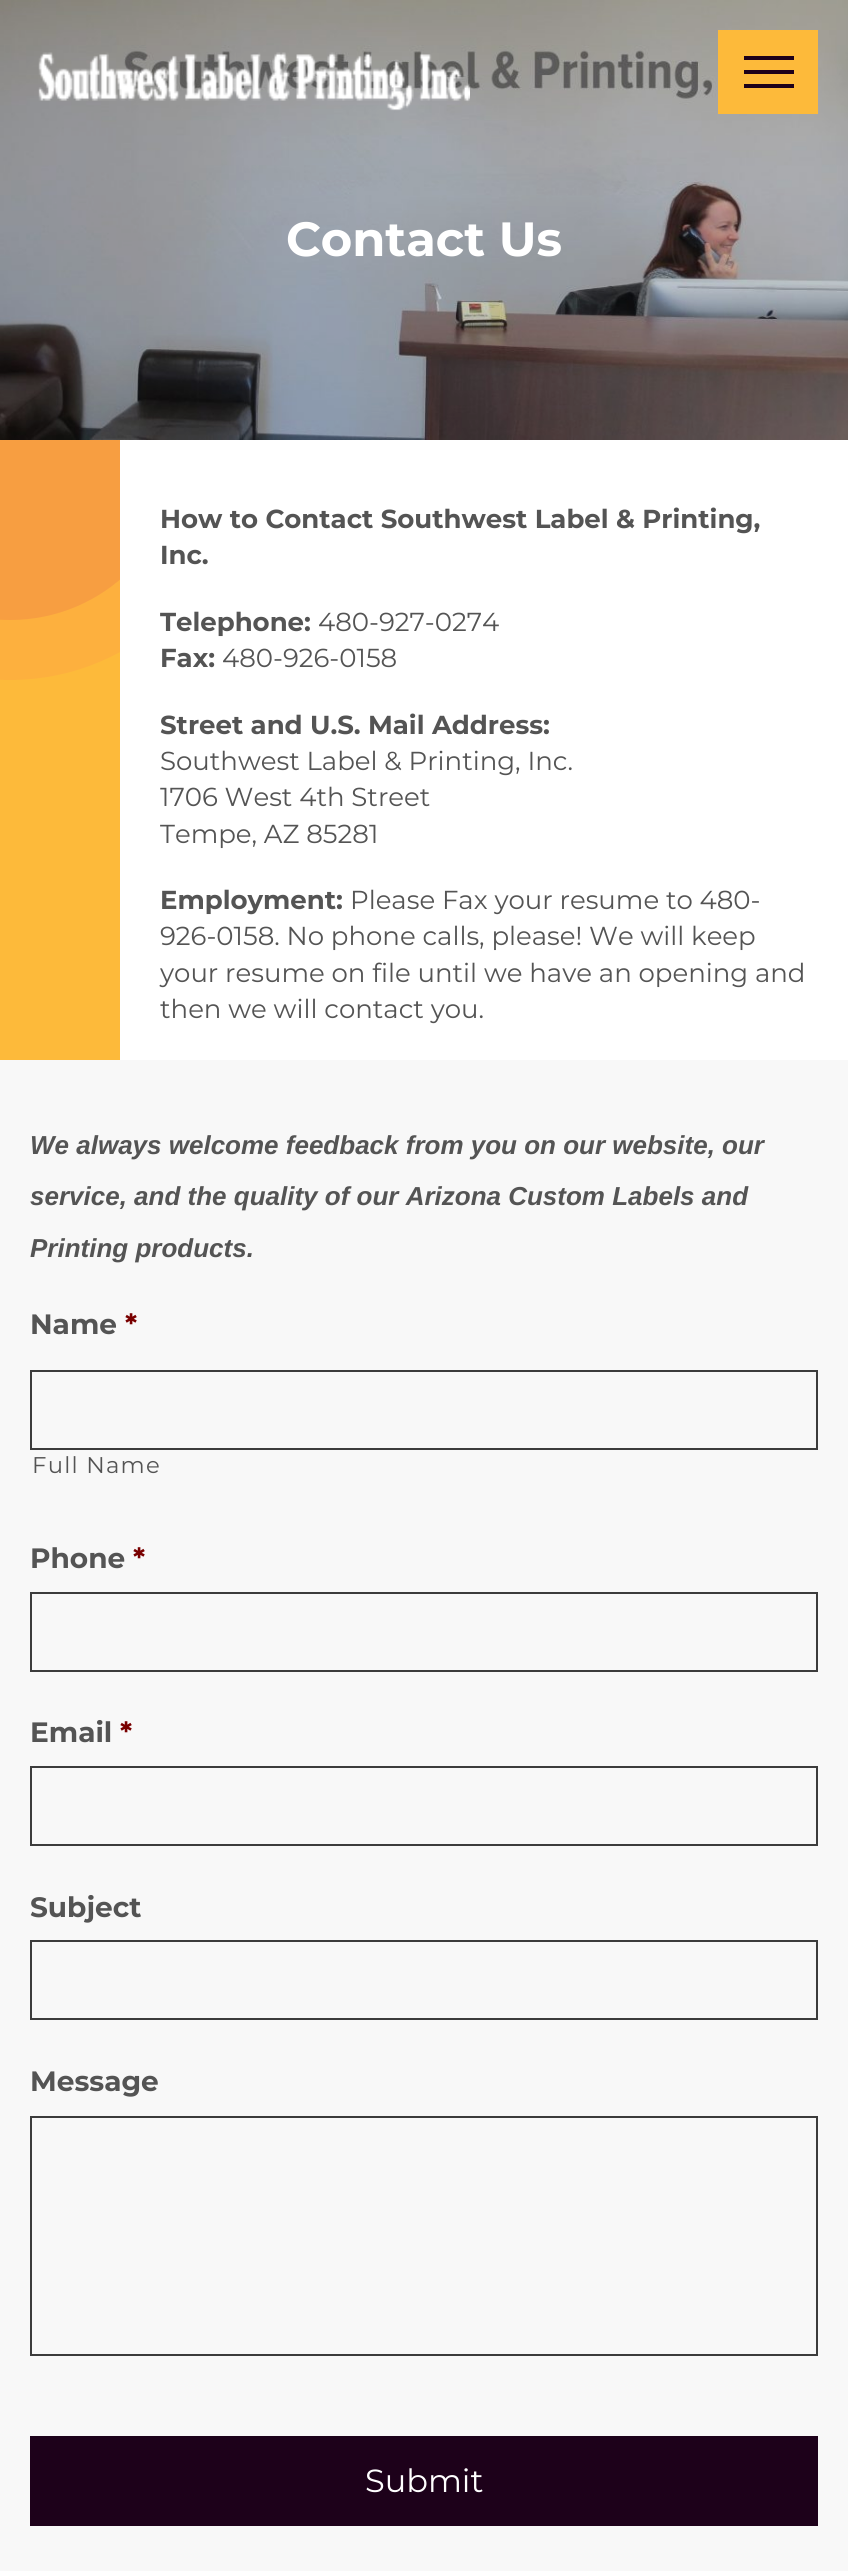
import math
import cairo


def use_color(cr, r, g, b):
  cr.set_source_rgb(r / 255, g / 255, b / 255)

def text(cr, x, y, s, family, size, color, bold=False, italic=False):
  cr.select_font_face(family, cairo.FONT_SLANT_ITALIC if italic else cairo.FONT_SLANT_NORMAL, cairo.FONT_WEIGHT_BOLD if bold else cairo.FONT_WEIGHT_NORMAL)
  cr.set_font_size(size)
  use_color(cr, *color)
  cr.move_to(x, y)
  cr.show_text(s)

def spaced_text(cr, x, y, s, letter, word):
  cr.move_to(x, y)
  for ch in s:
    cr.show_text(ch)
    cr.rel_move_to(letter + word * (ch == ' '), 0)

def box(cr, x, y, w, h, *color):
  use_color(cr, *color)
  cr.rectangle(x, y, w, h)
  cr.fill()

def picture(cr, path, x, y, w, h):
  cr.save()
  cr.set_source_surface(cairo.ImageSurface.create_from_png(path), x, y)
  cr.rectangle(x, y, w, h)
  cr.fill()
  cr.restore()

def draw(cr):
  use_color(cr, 255, 255, 255)
  cr.paint()
  picture(cr, "img_02.png", 0, 0, 848, 440)
  picture(cr, "img_01.png", 38, 51, 432, 60)
  box(cr, 718, 30, 100, 84, 253, 186, 58)
  box(cr, 744, 70, 50, 4, 29, 1, 26)
  box(cr, 744, 56, 50, 4, 29, 1, 26)
  box(cr, 744, 84, 50, 4, 29, 1, 26)
  box(cr, 0, 652, 120, 408, 253, 186, 58)
  box(cr, 0, 1060, 848, 1511, 248, 248, 248)
  cr.rectangle(31, 1371, 786, 78)
  use_color(cr, 60, 60, 60)
  cr.stroke()
  cr.rectangle(31, 1593, 786, 78)
  cr.stroke()
  cr.rectangle(31, 1767, 786, 78)
  cr.stroke()
  cr.rectangle(31, 1941, 786, 78)
  cr.stroke()
  cr.rectangle(31, 2117, 786, 238)
  cr.stroke()
  box(cr, 30, 2436, 788, 90, 29, 1, 26)
  text(cr, 286, 256, "Contact Us", "Montserrat", 48, (255, 255, 255), bold=True)
  text(cr, 160, 528, "How to Contact Southwest Label & Printing,", "Montserrat", 26, (84, 84, 84), bold=True)
  text(cr, 160, 564, "Inc.", "Montserrat", 26, (84, 84, 84), bold=True)
  text(cr, 160, 631, "Telephone:", "Montserrat", 26, (84, 84, 84), bold=True)
  text(cr, 318, 631, "480-927-0274", "Montserrat", 26, (84, 84, 84))
  text(cr, 160, 667, "Fax:", "Montserrat", 26, (84, 84, 84), bold=True)
  text(cr, 222, 667, "480-926-0158", "Montserrat", 26, (84, 84, 84))
  cr.save()
  cr.rectangle(0, 440, 120, 620)
  cr.clip()
  use_color(cr, 253, 176, 62)
  cr.arc(10, 450, 230, 0, 2 * math.pi)
  cr.fill()
  use_color(cr, 247, 158, 65)
  cr.arc(10, 450, 170, 0, 2 * math.pi)
  cr.fill()
  cr.restore()
  text(cr, 160, 734, "Street and U.S. Mail Address:", "Montserrat", 26, (84, 84, 84), bold=True)
  text(cr, 160, 770, "Southwest Label & Printing, Inc.", "Montserrat", 26, (84, 84, 84))
  text(cr, 160, 806, "1706 West 4th Street", "Montserrat", 26, (84, 84, 84))
  text(cr, 160, 843, "Tempe, AZ 85281", "Montserrat", 26, (84, 84, 84))
  text(cr, 160, 909, "Employment:", "Montserrat", 26, (84, 84, 84), bold=True)
  text(cr, 350, 909, "Please Fax your resume to 480-", "Montserrat", 26, (84, 84, 84))
  text(cr, 160, 945, "926-0158. No phone calls, please! We will keep", "Montserrat", 26, (84, 84, 84))
  text(cr, 160, 982, "your resume on file until we have an opening and", "Montserrat", 26, (84, 84, 84))
  text(cr, 160, 1018, "then we will contact you.", "Montserrat", 26, (84, 84, 84))
  text(cr, 30, 1154, "We always welcome feedback from you on our website, our", "Liberation Sans", 26, (84, 84, 84), bold=True, italic=True)
  text(cr, 30, 1205, "service, and the quality of our Arizona Custom Labels and", "Liberation Sans", 26, (84, 84, 84), bold=True, italic=True)
  text(cr, 30, 1257, "Printing products.", "Liberation Sans", 26, (84, 84, 84), bold=True, italic=True)
  text(cr, 30, 1334, "Name", "Montserrat", 28, (84, 84, 84), bold=True)
  text(cr, 125, 1334, "*", "Montserrat", 28, (121, 0, 0), bold=True)
  cr.select_font_face("Montserrat")
  cr.set_font_size(22.75)
  use_color(cr, 84, 84, 84)
  spaced_text(cr, 32, 1473, "Full Name", 1.25, 0)
  text(cr, 30, 1568, "Phone", "Montserrat", 28, (84, 84, 84), bold=True)
  text(cr, 133, 1568, "*", "Montserrat", 28, (121, 0, 0), bold=True)
  text(cr, 30, 1742, "Email", "Montserrat", 28, (84, 84, 84), bold=True)
  text(cr, 120, 1742, "*", "Montserrat", 28, (121, 0, 0), bold=True)
  text(cr, 30, 1917, "Subject", "Montserrat", 28, (84, 84, 84), bold=True)
  text(cr, 30, 2091, "Message", "Montserrat", 28, (84, 84, 84), bold=True)
  text(cr, 365, 2492, "Submit", "Montserrat", 32, (255, 255, 255))


surface = cairo.ImageSurface(cairo.FORMAT_RGB24, 848, 2571)
cr = cairo.Context(surface)
options = cairo.FontOptions()
options.set_hint_metrics(cairo.HINT_METRICS_OFF)
options.set_hint_style(cairo.HINT_STYLE_NONE)
cr.set_font_options(options)
cr.set_miter_limit(4)
draw(cr)
surface.write_to_png("out.png")
